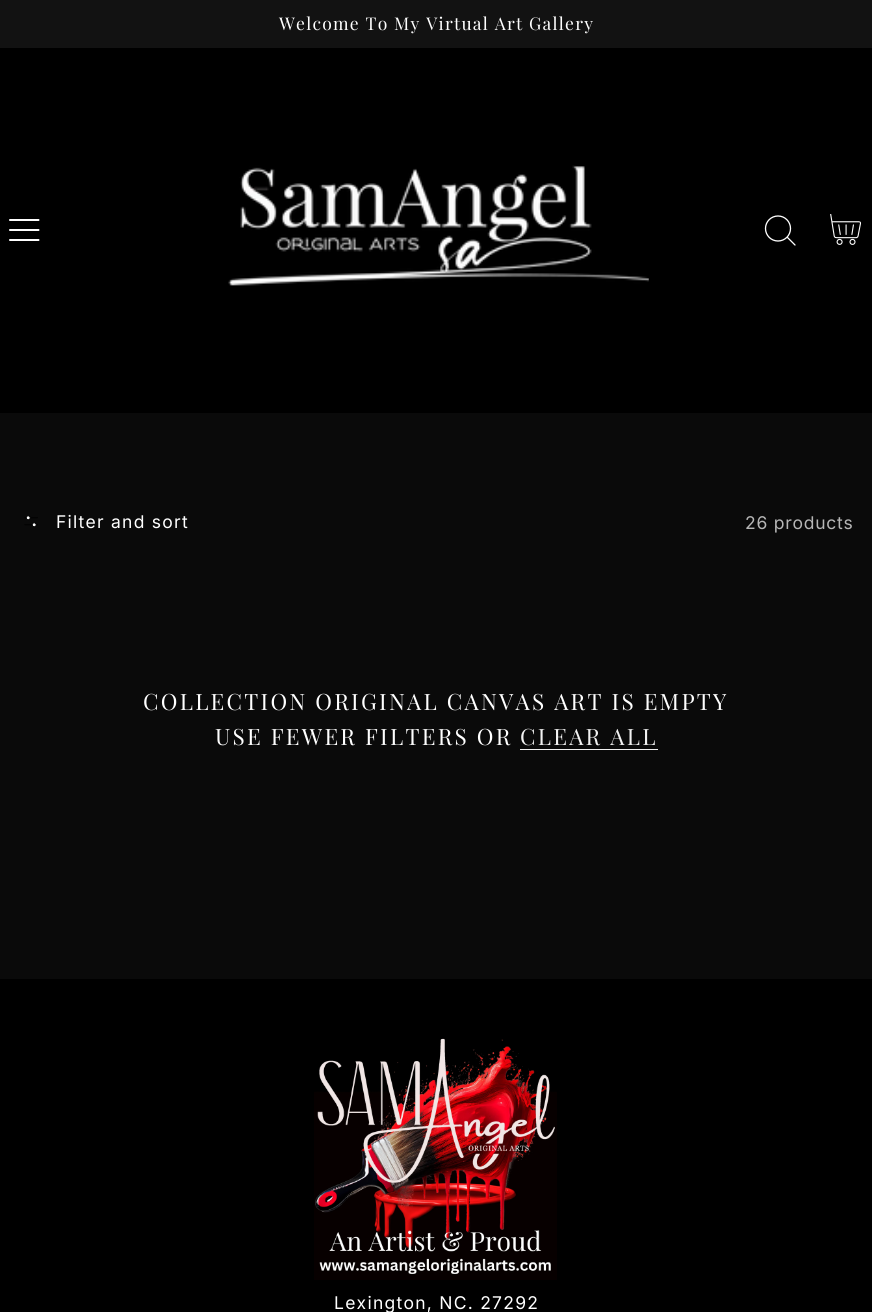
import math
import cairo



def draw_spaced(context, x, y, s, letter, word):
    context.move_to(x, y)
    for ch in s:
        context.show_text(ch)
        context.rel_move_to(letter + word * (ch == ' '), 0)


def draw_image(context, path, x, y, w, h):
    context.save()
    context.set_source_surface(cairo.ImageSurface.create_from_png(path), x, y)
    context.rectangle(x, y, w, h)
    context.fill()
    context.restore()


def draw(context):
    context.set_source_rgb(10 / 255, 10 / 255, 10 / 255)
    context.paint()
    context.set_source_rgb(18 / 255, 18 / 255, 18 / 255)
    context.rectangle(0, 0, 872, 48)
    context.fill()
    context.set_source_rgb(0, 0, 0)
    context.rectangle(0, 48, 872, 365)
    context.fill()
    context.new_path()
    context.move_to(10, 220)
    context.line_to(38.5, 220)
    context.move_to(10, 230)
    context.line_to(38.5, 230)
    context.move_to(10, 240)
    context.line_to(38.5, 240)
    context.set_source_rgb(1, 1, 1)
    context.set_line_cap(cairo.LineCap.ROUND)
    context.stroke()
    draw_image(context, "images/1.png", 228, 165, 421, 121)
    context.arc(778, 228.5, 12.5, 0, 2 * math.pi)
    context.set_line_width(1.3)
    context.set_line_cap(cairo.LineCap.BUTT)
    context.stroke()
    context.new_path()
    context.move_to(787.5, 237.5)
    context.line_to(795, 245)
    context.set_line_cap(cairo.LineCap.ROUND)
    context.stroke()
    draw_image(context, "images/2.png", 830, 214, 31, 31)
    draw_image(context, "images/3.png", 24, 515, 14, 12)
    context.set_source_rgb(242 / 255, 242 / 255, 242 / 255)
    context.rectangle(520, 749, 138, 1)
    context.fill()
    context.set_source_rgb(0, 0, 0)
    context.rectangle(0, 979, 872, 333)
    context.fill()
    draw_image(context, "images/4.png", 314, 1038, 243, 242)
    context.select_font_face("Playfair Display")
    context.set_font_size(17.5)
    context.set_source_rgb(1, 1, 1)
    draw_spaced(context, 279, 30, "Welcome To My Virtual Art Gallery", 1.25, 0)
    context.select_font_face("Inter")
    draw_spaced(context, 56, 528, "Filter and sort", 1.25, 0)
    context.set_source_rgb(182 / 255, 182 / 255, 182 / 255)
    draw_spaced(context, 745, 529, "26 products", 0.75, 0)
    context.select_font_face("Playfair Display")
    context.set_font_size(22.5)
    context.set_source_rgb(1, 1, 1)
    draw_spaced(context, 143, 710, "COLLECTION ORIGINAL CANVAS ART IS EMPTY", 2.25, 0)
    draw_spaced(context, 215, 745, "USE FEWER FILTERS OR", 2.25, 0)
    context.set_source_rgb(242 / 255, 242 / 255, 242 / 255)
    draw_spaced(context, 520, 745, "CLEAR ALL", 2.25, 0)
    context.select_font_face("Inter")
    context.set_font_size(17.5)
    context.set_source_rgb(1, 1, 1)
    draw_spaced(context, 334, 1309, "Lexington, NC. 27292", 1.25, 0)


surface = cairo.ImageSurface(cairo.Format.RGB24, 872, 1312)
context = cairo.Context(surface)
options = cairo.FontOptions()
options.set_hint_metrics(cairo.HintMetrics.OFF)
options.set_hint_style(cairo.HintStyle.NONE)
context.set_font_options(options)
context.set_miter_limit(4)
draw(context)
surface.write_to_png("out.png")
